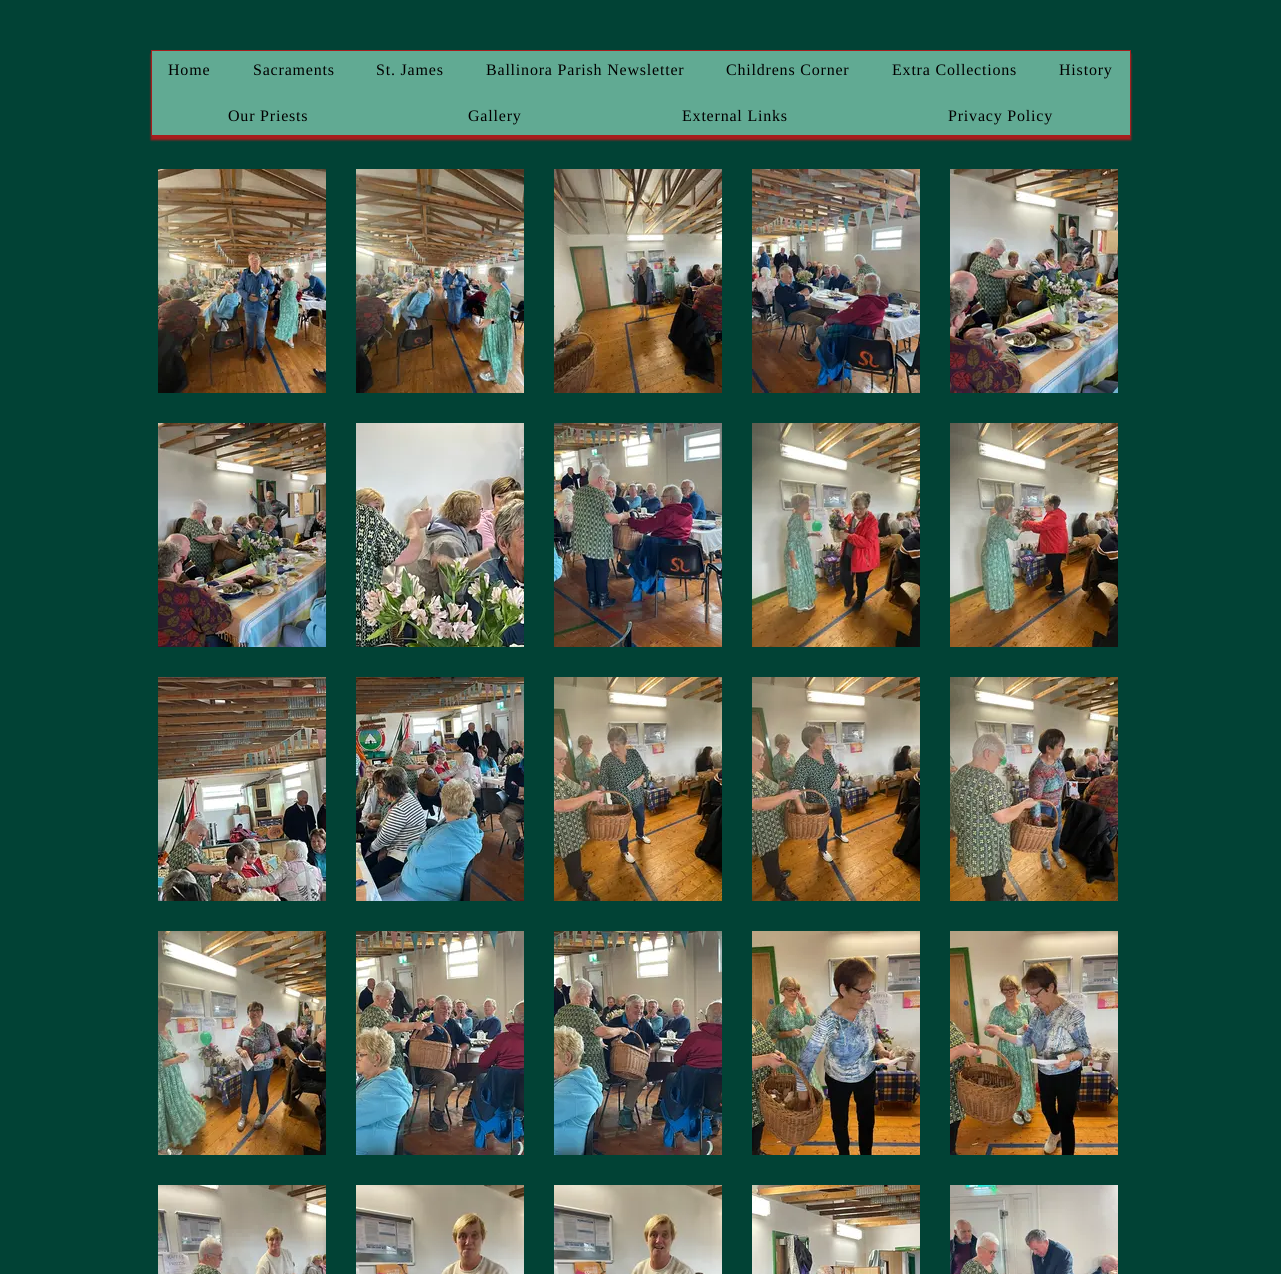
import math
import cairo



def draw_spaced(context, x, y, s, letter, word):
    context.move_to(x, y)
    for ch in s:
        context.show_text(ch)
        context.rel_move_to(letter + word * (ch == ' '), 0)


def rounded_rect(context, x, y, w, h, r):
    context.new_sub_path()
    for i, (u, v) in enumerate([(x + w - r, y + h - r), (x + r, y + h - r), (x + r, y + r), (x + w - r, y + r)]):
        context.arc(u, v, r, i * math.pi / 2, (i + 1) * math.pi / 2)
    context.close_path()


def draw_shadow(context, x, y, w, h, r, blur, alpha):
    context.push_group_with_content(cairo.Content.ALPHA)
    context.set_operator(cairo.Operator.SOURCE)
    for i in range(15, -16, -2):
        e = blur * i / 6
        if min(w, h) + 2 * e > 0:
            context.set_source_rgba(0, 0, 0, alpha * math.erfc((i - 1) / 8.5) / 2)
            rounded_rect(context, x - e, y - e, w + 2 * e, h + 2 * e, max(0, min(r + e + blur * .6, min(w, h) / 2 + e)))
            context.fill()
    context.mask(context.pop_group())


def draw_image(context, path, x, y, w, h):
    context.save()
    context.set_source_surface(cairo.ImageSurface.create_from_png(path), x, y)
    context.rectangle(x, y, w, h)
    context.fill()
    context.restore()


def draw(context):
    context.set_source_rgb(1 / 255, 66 / 255, 53 / 255)
    context.paint()
    context.set_source_rgb(168 / 255, 29 / 255, 29 / 255)
    draw_shadow(context, 151, 54, 980, 86, 0, 1, 1)
    context.set_source_rgb(97 / 255, 170 / 255, 147 / 255)
    context.rectangle(151.5, 50.5, 979, 85)
    context.fill_preserve()
    context.set_source_rgb(168 / 255, 29 / 255, 29 / 255)
    context.set_line_width(1)
    context.stroke()
    draw_image(context, "images/1.png", 158, 169, 168, 224)
    draw_image(context, "images/2.png", 356, 169, 168, 224)
    draw_image(context, "images/3.png", 554, 169, 168, 224)
    draw_image(context, "images/4.png", 752, 169, 168, 224)
    draw_image(context, "images/5.png", 950, 169, 168, 224)
    draw_image(context, "images/6.png", 158, 423, 168, 224)
    draw_image(context, "images/7.png", 356, 423, 168, 224)
    draw_image(context, "images/8.png", 554, 423, 168, 224)
    draw_image(context, "images/9.png", 752, 423, 168, 224)
    draw_image(context, "images/10.png", 950, 423, 168, 224)
    draw_image(context, "images/11.png", 158, 677, 168, 224)
    draw_image(context, "images/12.png", 356, 677, 168, 224)
    draw_image(context, "images/13.png", 554, 677, 168, 224)
    draw_image(context, "images/14.png", 752, 677, 168, 224)
    draw_image(context, "images/15.png", 950, 677, 168, 224)
    draw_image(context, "images/16.png", 158, 931, 168, 224)
    draw_image(context, "images/17.png", 356, 931, 168, 224)
    draw_image(context, "images/18.png", 554, 931, 168, 224)
    draw_image(context, "images/19.png", 752, 931, 168, 224)
    draw_image(context, "images/20.png", 950, 931, 168, 224)
    draw_image(context, "images/21.png", 158, 1185, 168, 89)
    draw_image(context, "images/22.png", 356, 1185, 168, 89)
    draw_image(context, "images/23.png", 554, 1185, 168, 89)
    draw_image(context, "images/24.png", 752, 1185, 168, 89)
    draw_image(context, "images/25.png", 950, 1185, 168, 89)
    context.select_font_face("Liberation Serif")
    context.set_font_size(16)
    context.set_source_rgb(0, 0, 0)
    draw_spaced(context, 168, 75, "Home", 0.8, 0)
    draw_spaced(context, 253, 75, "Sacraments", 0.8, 0)
    draw_spaced(context, 376, 75, "St. James", 0.8, 0)
    draw_spaced(context, 486, 75, "Ballinora Parish Newsletter", 0.8, 0)
    draw_spaced(context, 726, 75, "Childrens Corner", 0.8, 0)
    draw_spaced(context, 892, 75, "Extra Collections", 0.8, 0)
    draw_spaced(context, 1059, 75, "History", 0.8, 0)
    draw_spaced(context, 228, 121, "Our Priests", 0.8, 0)
    draw_spaced(context, 468, 121, "Gallery", 0.8, 0)
    draw_spaced(context, 682, 121, "External Links", 0.8, 0)
    draw_spaced(context, 948, 121, "Privacy Policy", 0.8, 0)


surface = cairo.ImageSurface(cairo.Format.RGB24, 1281, 1274)
context = cairo.Context(surface)
options = cairo.FontOptions()
options.set_hint_metrics(cairo.HintMetrics.OFF)
options.set_hint_style(cairo.HintStyle.NONE)
context.set_font_options(options)
context.set_miter_limit(4)
draw(context)
surface.write_to_png("out.png")
